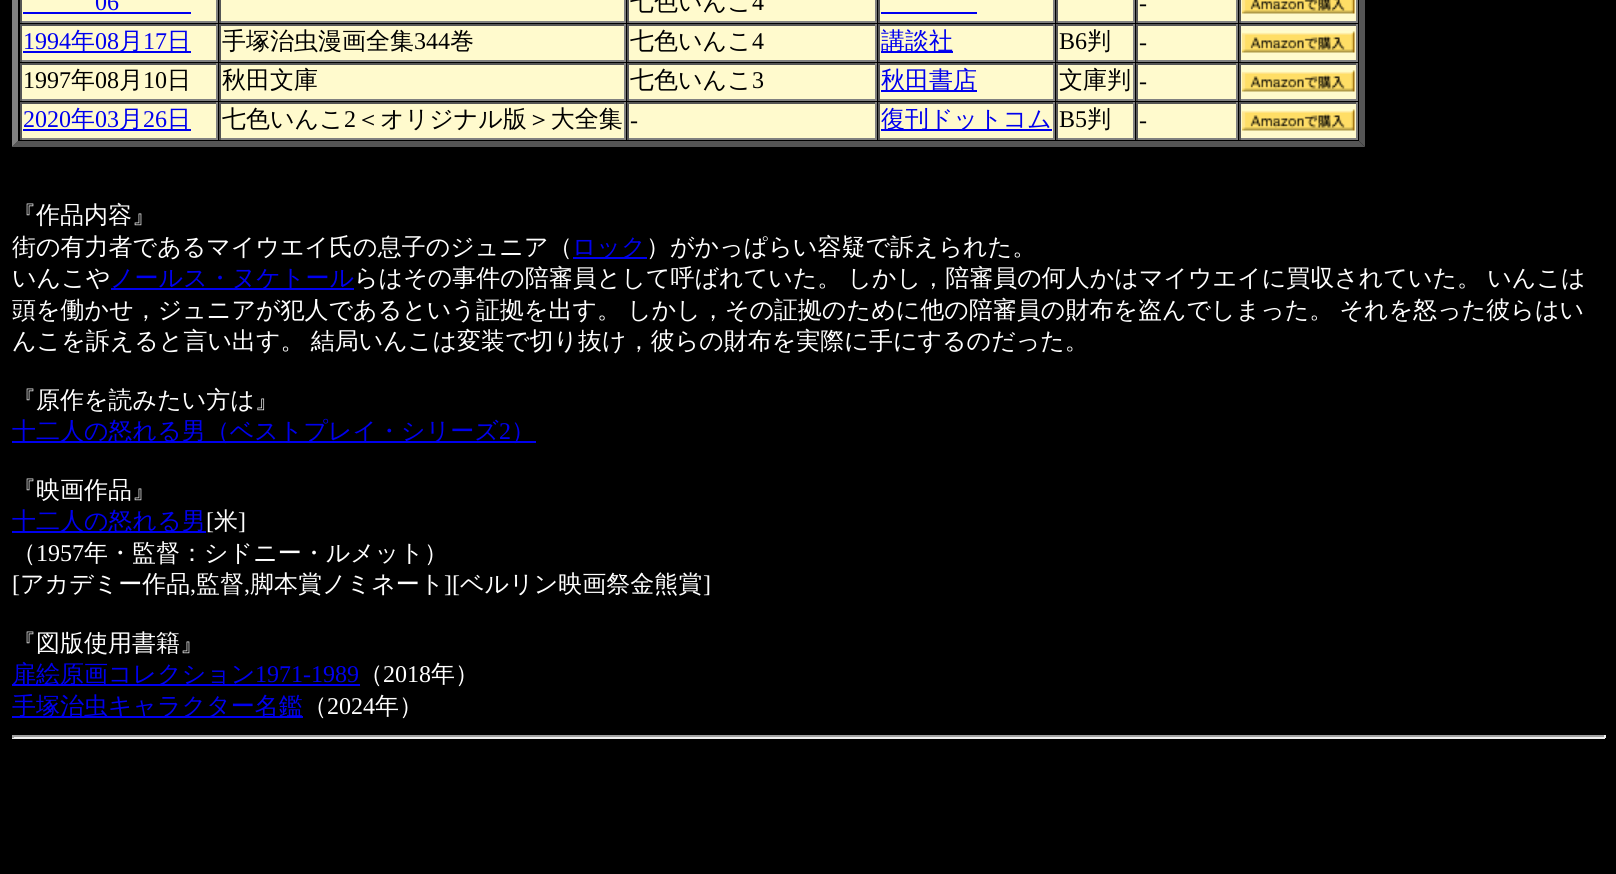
import math
import cairo



def draw_spaced(context, x, y, s, letter, word):
    context.move_to(x, y)
    for ch in s:
        context.show_text(ch)
        context.rel_move_to(letter + word * (ch == ' '), 0)


def draw_image(context, path, x, y, w, h):
    context.save()
    context.set_source_surface(cairo.ImageSurface.create_from_png(path), x, y)
    context.rectangle(x, y, w, h)
    context.fill()
    context.restore()


def draw(context):
    context.set_source_rgb(0, 0, 0)
    context.paint()
    context.set_source_rgb(85 / 255, 85 / 255, 85 / 255)
    context.new_path()
    context.move_to(1365, -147)
    context.line_to(1365, 147)
    context.line_to(1359, 141)
    context.line_to(1359, -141)
    context.close_path()
    context.fill()
    context.new_path()
    context.move_to(1365, 147)
    context.line_to(12, 147)
    context.line_to(18, 141)
    context.line_to(1359, 141)
    context.close_path()
    context.fill()
    context.set_source_rgb(128 / 255, 128 / 255, 128 / 255)
    context.new_path()
    context.move_to(12, 147)
    context.line_to(12, -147)
    context.line_to(18, -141)
    context.line_to(18, 141)
    context.close_path()
    context.fill()
    context.set_source_rgb(1, 250 / 255, 205 / 255)
    context.rectangle(22, 0, 194, 21)
    context.fill()
    context.set_source_rgb(128 / 255, 128 / 255, 128 / 255)
    context.rectangle(216, 0, 2, 23)
    context.fill()
    context.rectangle(20, 21, 198, 2)
    context.fill()
    context.set_source_rgb(85 / 255, 85 / 255, 85 / 255)
    context.rectangle(20, 0, 2, 23)
    context.fill()
    context.set_source_rgb(0, 0, 238 / 255)
    context.rectangle(23, 12, 168, 2)
    context.fill()
    context.set_source_rgb(1, 250 / 255, 205 / 255)
    context.rectangle(221, 0, 403, 21)
    context.fill()
    context.set_source_rgb(128 / 255, 128 / 255, 128 / 255)
    context.rectangle(624, 0, 2, 23)
    context.fill()
    context.rectangle(219, 21, 407, 2)
    context.fill()
    context.set_source_rgb(85 / 255, 85 / 255, 85 / 255)
    context.rectangle(219, 0, 2, 23)
    context.fill()
    context.set_source_rgb(1, 250 / 255, 205 / 255)
    context.rectangle(629, 0, 246, 21)
    context.fill()
    context.set_source_rgb(128 / 255, 128 / 255, 128 / 255)
    context.rectangle(875, 0, 2, 23)
    context.fill()
    context.rectangle(627, 21, 249, 2)
    context.fill()
    context.set_source_rgb(85 / 255, 85 / 255, 85 / 255)
    context.rectangle(627, 0, 2, 23)
    context.fill()
    context.set_source_rgb(1, 250 / 255, 205 / 255)
    context.rectangle(880, 0, 173, 21)
    context.fill()
    context.set_source_rgb(128 / 255, 128 / 255, 128 / 255)
    context.rectangle(1053, 0, 2, 23)
    context.fill()
    context.rectangle(878, 21, 177, 2)
    context.fill()
    context.set_source_rgb(85 / 255, 85 / 255, 85 / 255)
    context.rectangle(878, 0, 2, 23)
    context.fill()
    context.set_source_rgb(0, 0, 238 / 255)
    context.rectangle(881, 12, 96, 2)
    context.fill()
    context.set_source_rgb(1, 250 / 255, 205 / 255)
    context.rectangle(1058, 0, 75, 21)
    context.fill()
    context.set_source_rgb(128 / 255, 128 / 255, 128 / 255)
    context.rectangle(1133, 0, 2, 23)
    context.fill()
    context.rectangle(1056, 21, 78, 2)
    context.fill()
    context.set_source_rgb(85 / 255, 85 / 255, 85 / 255)
    context.rectangle(1056, 0, 2, 23)
    context.fill()
    context.set_source_rgb(1, 250 / 255, 205 / 255)
    context.rectangle(1138, 0, 98, 21)
    context.fill()
    context.set_source_rgb(128 / 255, 128 / 255, 128 / 255)
    context.rectangle(1236, 0, 2, 23)
    context.fill()
    context.rectangle(1136, 21, 102, 2)
    context.fill()
    context.set_source_rgb(85 / 255, 85 / 255, 85 / 255)
    context.rectangle(1136, 0, 2, 23)
    context.fill()
    context.set_source_rgb(1, 250 / 255, 205 / 255)
    context.rectangle(1241, 0, 115, 21)
    context.fill()
    context.set_source_rgb(128 / 255, 128 / 255, 128 / 255)
    context.rectangle(1356, 0, 2, 23)
    context.fill()
    context.rectangle(1239, 21, 119, 2)
    context.fill()
    context.set_source_rgb(85 / 255, 85 / 255, 85 / 255)
    context.rectangle(1239, 0, 2, 23)
    context.fill()
    draw_image(context, "images/1.png", 1242, 0, 113, 14)
    context.set_source_rgb(1, 250 / 255, 205 / 255)
    context.rectangle(22, 26, 194, 34)
    context.fill()
    context.set_source_rgb(85 / 255, 85 / 255, 85 / 255)
    context.rectangle(20, 24, 198, 2)
    context.fill()
    context.set_source_rgb(128 / 255, 128 / 255, 128 / 255)
    context.rectangle(216, 24, 2, 38)
    context.fill()
    context.rectangle(20, 60, 198, 2)
    context.fill()
    context.set_source_rgb(85 / 255, 85 / 255, 85 / 255)
    context.rectangle(20, 24, 2, 38)
    context.fill()
    context.set_source_rgb(0, 0, 238 / 255)
    context.rectangle(23, 51, 168, 2)
    context.fill()
    context.set_source_rgb(1, 250 / 255, 205 / 255)
    context.rectangle(221, 26, 403, 34)
    context.fill()
    context.set_source_rgb(85 / 255, 85 / 255, 85 / 255)
    context.rectangle(219, 24, 407, 2)
    context.fill()
    context.set_source_rgb(128 / 255, 128 / 255, 128 / 255)
    context.rectangle(624, 24, 2, 38)
    context.fill()
    context.rectangle(219, 60, 407, 2)
    context.fill()
    context.set_source_rgb(85 / 255, 85 / 255, 85 / 255)
    context.rectangle(219, 24, 2, 38)
    context.fill()
    context.set_source_rgb(1, 250 / 255, 205 / 255)
    context.rectangle(629, 26, 246, 34)
    context.fill()
    context.set_source_rgb(85 / 255, 85 / 255, 85 / 255)
    context.rectangle(627, 24, 249, 2)
    context.fill()
    context.set_source_rgb(128 / 255, 128 / 255, 128 / 255)
    context.rectangle(875, 24, 2, 38)
    context.fill()
    context.rectangle(627, 60, 249, 2)
    context.fill()
    context.set_source_rgb(85 / 255, 85 / 255, 85 / 255)
    context.rectangle(627, 24, 2, 38)
    context.fill()
    context.set_source_rgb(1, 250 / 255, 205 / 255)
    context.rectangle(880, 26, 173, 34)
    context.fill()
    context.set_source_rgb(85 / 255, 85 / 255, 85 / 255)
    context.rectangle(878, 24, 177, 2)
    context.fill()
    context.set_source_rgb(128 / 255, 128 / 255, 128 / 255)
    context.rectangle(1053, 24, 2, 38)
    context.fill()
    context.rectangle(878, 60, 177, 2)
    context.fill()
    context.set_source_rgb(85 / 255, 85 / 255, 85 / 255)
    context.rectangle(878, 24, 2, 38)
    context.fill()
    context.set_source_rgb(0, 0, 238 / 255)
    context.rectangle(881, 51, 72, 2)
    context.fill()
    context.set_source_rgb(1, 250 / 255, 205 / 255)
    context.rectangle(1058, 26, 75, 34)
    context.fill()
    context.set_source_rgb(85 / 255, 85 / 255, 85 / 255)
    context.rectangle(1056, 24, 78, 2)
    context.fill()
    context.set_source_rgb(128 / 255, 128 / 255, 128 / 255)
    context.rectangle(1133, 24, 2, 38)
    context.fill()
    context.rectangle(1056, 60, 78, 2)
    context.fill()
    context.set_source_rgb(85 / 255, 85 / 255, 85 / 255)
    context.rectangle(1056, 24, 2, 38)
    context.fill()
    context.set_source_rgb(1, 250 / 255, 205 / 255)
    context.rectangle(1138, 26, 98, 34)
    context.fill()
    context.set_source_rgb(85 / 255, 85 / 255, 85 / 255)
    context.rectangle(1136, 24, 102, 2)
    context.fill()
    context.set_source_rgb(128 / 255, 128 / 255, 128 / 255)
    context.rectangle(1236, 24, 2, 38)
    context.fill()
    context.rectangle(1136, 60, 102, 2)
    context.fill()
    context.set_source_rgb(85 / 255, 85 / 255, 85 / 255)
    context.rectangle(1136, 24, 2, 38)
    context.fill()
    context.set_source_rgb(1, 250 / 255, 205 / 255)
    context.rectangle(1241, 26, 115, 34)
    context.fill()
    context.set_source_rgb(85 / 255, 85 / 255, 85 / 255)
    context.rectangle(1239, 24, 119, 2)
    context.fill()
    context.set_source_rgb(128 / 255, 128 / 255, 128 / 255)
    context.rectangle(1356, 24, 2, 38)
    context.fill()
    context.rectangle(1239, 60, 119, 2)
    context.fill()
    context.set_source_rgb(85 / 255, 85 / 255, 85 / 255)
    context.rectangle(1239, 24, 2, 38)
    context.fill()
    draw_image(context, "images/2.png", 1242, 31, 113, 22)
    context.set_source_rgb(1, 250 / 255, 205 / 255)
    context.rectangle(22, 65, 194, 34)
    context.fill()
    context.set_source_rgb(85 / 255, 85 / 255, 85 / 255)
    context.rectangle(20, 63, 198, 2)
    context.fill()
    context.set_source_rgb(128 / 255, 128 / 255, 128 / 255)
    context.rectangle(216, 63, 2, 38)
    context.fill()
    context.rectangle(20, 99, 198, 2)
    context.fill()
    context.set_source_rgb(85 / 255, 85 / 255, 85 / 255)
    context.rectangle(20, 63, 2, 38)
    context.fill()
    context.set_source_rgb(1, 250 / 255, 205 / 255)
    context.rectangle(221, 65, 403, 34)
    context.fill()
    context.set_source_rgb(85 / 255, 85 / 255, 85 / 255)
    context.rectangle(219, 63, 407, 2)
    context.fill()
    context.set_source_rgb(128 / 255, 128 / 255, 128 / 255)
    context.rectangle(624, 63, 2, 38)
    context.fill()
    context.rectangle(219, 99, 407, 2)
    context.fill()
    context.set_source_rgb(85 / 255, 85 / 255, 85 / 255)
    context.rectangle(219, 63, 2, 38)
    context.fill()
    context.set_source_rgb(1, 250 / 255, 205 / 255)
    context.rectangle(629, 65, 246, 34)
    context.fill()
    context.set_source_rgb(85 / 255, 85 / 255, 85 / 255)
    context.rectangle(627, 63, 249, 2)
    context.fill()
    context.set_source_rgb(128 / 255, 128 / 255, 128 / 255)
    context.rectangle(875, 63, 2, 38)
    context.fill()
    context.rectangle(627, 99, 249, 2)
    context.fill()
    context.set_source_rgb(85 / 255, 85 / 255, 85 / 255)
    context.rectangle(627, 63, 2, 38)
    context.fill()
    context.set_source_rgb(1, 250 / 255, 205 / 255)
    context.rectangle(880, 65, 173, 34)
    context.fill()
    context.set_source_rgb(85 / 255, 85 / 255, 85 / 255)
    context.rectangle(878, 63, 177, 2)
    context.fill()
    context.set_source_rgb(128 / 255, 128 / 255, 128 / 255)
    context.rectangle(1053, 63, 2, 38)
    context.fill()
    context.rectangle(878, 99, 177, 2)
    context.fill()
    context.set_source_rgb(85 / 255, 85 / 255, 85 / 255)
    context.rectangle(878, 63, 2, 38)
    context.fill()
    context.set_source_rgb(0, 0, 238 / 255)
    context.rectangle(881, 90, 96, 2)
    context.fill()
    context.set_source_rgb(1, 250 / 255, 205 / 255)
    context.rectangle(1058, 65, 75, 34)
    context.fill()
    context.set_source_rgb(85 / 255, 85 / 255, 85 / 255)
    context.rectangle(1056, 63, 78, 2)
    context.fill()
    context.set_source_rgb(128 / 255, 128 / 255, 128 / 255)
    context.rectangle(1133, 63, 2, 38)
    context.fill()
    context.rectangle(1056, 99, 78, 2)
    context.fill()
    context.set_source_rgb(85 / 255, 85 / 255, 85 / 255)
    context.rectangle(1056, 63, 2, 38)
    context.fill()
    context.set_source_rgb(1, 250 / 255, 205 / 255)
    context.rectangle(1138, 65, 98, 34)
    context.fill()
    context.set_source_rgb(85 / 255, 85 / 255, 85 / 255)
    context.rectangle(1136, 63, 102, 2)
    context.fill()
    context.set_source_rgb(128 / 255, 128 / 255, 128 / 255)
    context.rectangle(1236, 63, 2, 38)
    context.fill()
    context.rectangle(1136, 99, 102, 2)
    context.fill()
    context.set_source_rgb(85 / 255, 85 / 255, 85 / 255)
    context.rectangle(1136, 63, 2, 38)
    context.fill()
    context.set_source_rgb(1, 250 / 255, 205 / 255)
    context.rectangle(1241, 65, 115, 34)
    context.fill()
    context.set_source_rgb(85 / 255, 85 / 255, 85 / 255)
    context.rectangle(1239, 63, 119, 2)
    context.fill()
    context.set_source_rgb(128 / 255, 128 / 255, 128 / 255)
    context.rectangle(1356, 63, 2, 38)
    context.fill()
    context.rectangle(1239, 99, 119, 2)
    context.fill()
    context.set_source_rgb(85 / 255, 85 / 255, 85 / 255)
    context.rectangle(1239, 63, 2, 38)
    context.fill()
    draw_image(context, "images/2.png", 1242, 70, 113, 22)
    context.set_source_rgb(1, 250 / 255, 205 / 255)
    context.rectangle(22, 104, 194, 34)
    context.fill()
    context.set_source_rgb(85 / 255, 85 / 255, 85 / 255)
    context.rectangle(20, 102, 198, 2)
    context.fill()
    context.set_source_rgb(128 / 255, 128 / 255, 128 / 255)
    context.rectangle(216, 102, 2, 38)
    context.fill()
    context.rectangle(20, 138, 198, 2)
    context.fill()
    context.set_source_rgb(85 / 255, 85 / 255, 85 / 255)
    context.rectangle(20, 102, 2, 38)
    context.fill()
    context.set_source_rgb(0, 0, 238 / 255)
    context.rectangle(23, 129, 168, 2)
    context.fill()
    context.set_source_rgb(1, 250 / 255, 205 / 255)
    context.rectangle(221, 104, 403, 34)
    context.fill()
    context.set_source_rgb(85 / 255, 85 / 255, 85 / 255)
    context.rectangle(219, 102, 407, 2)
    context.fill()
    context.set_source_rgb(128 / 255, 128 / 255, 128 / 255)
    context.rectangle(624, 102, 2, 38)
    context.fill()
    context.rectangle(219, 138, 407, 2)
    context.fill()
    context.set_source_rgb(85 / 255, 85 / 255, 85 / 255)
    context.rectangle(219, 102, 2, 38)
    context.fill()
    context.set_source_rgb(1, 250 / 255, 205 / 255)
    context.rectangle(629, 104, 246, 34)
    context.fill()
    context.set_source_rgb(85 / 255, 85 / 255, 85 / 255)
    context.rectangle(627, 102, 249, 2)
    context.fill()
    context.set_source_rgb(128 / 255, 128 / 255, 128 / 255)
    context.rectangle(875, 102, 2, 38)
    context.fill()
    context.rectangle(627, 138, 249, 2)
    context.fill()
    context.set_source_rgb(85 / 255, 85 / 255, 85 / 255)
    context.rectangle(627, 102, 2, 38)
    context.fill()
    context.set_source_rgb(1, 250 / 255, 205 / 255)
    context.rectangle(880, 104, 173, 34)
    context.fill()
    context.set_source_rgb(85 / 255, 85 / 255, 85 / 255)
    context.rectangle(878, 102, 177, 2)
    context.fill()
    context.set_source_rgb(128 / 255, 128 / 255, 128 / 255)
    context.rectangle(1053, 102, 2, 38)
    context.fill()
    context.rectangle(878, 138, 177, 2)
    context.fill()
    context.set_source_rgb(85 / 255, 85 / 255, 85 / 255)
    context.rectangle(878, 102, 2, 38)
    context.fill()
    context.set_source_rgb(0, 0, 238 / 255)
    context.rectangle(881, 129, 171, 2)
    context.fill()
    context.set_source_rgb(1, 250 / 255, 205 / 255)
    context.rectangle(1058, 104, 75, 34)
    context.fill()
    context.set_source_rgb(85 / 255, 85 / 255, 85 / 255)
    context.rectangle(1056, 102, 78, 2)
    context.fill()
    context.set_source_rgb(128 / 255, 128 / 255, 128 / 255)
    context.rectangle(1133, 102, 2, 38)
    context.fill()
    context.rectangle(1056, 138, 78, 2)
    context.fill()
    context.set_source_rgb(85 / 255, 85 / 255, 85 / 255)
    context.rectangle(1056, 102, 2, 38)
    context.fill()
    context.set_source_rgb(1, 250 / 255, 205 / 255)
    context.rectangle(1138, 104, 98, 34)
    context.fill()
    context.set_source_rgb(85 / 255, 85 / 255, 85 / 255)
    context.rectangle(1136, 102, 102, 2)
    context.fill()
    context.set_source_rgb(128 / 255, 128 / 255, 128 / 255)
    context.rectangle(1236, 102, 2, 38)
    context.fill()
    context.rectangle(1136, 138, 102, 2)
    context.fill()
    context.set_source_rgb(85 / 255, 85 / 255, 85 / 255)
    context.rectangle(1136, 102, 2, 38)
    context.fill()
    context.set_source_rgb(1, 250 / 255, 205 / 255)
    context.rectangle(1241, 104, 115, 34)
    context.fill()
    context.set_source_rgb(85 / 255, 85 / 255, 85 / 255)
    context.rectangle(1239, 102, 119, 2)
    context.fill()
    context.set_source_rgb(128 / 255, 128 / 255, 128 / 255)
    context.rectangle(1356, 102, 2, 38)
    context.fill()
    context.rectangle(1239, 138, 119, 2)
    context.fill()
    context.set_source_rgb(85 / 255, 85 / 255, 85 / 255)
    context.rectangle(1239, 102, 2, 38)
    context.fill()
    draw_image(context, "images/2.png", 1242, 109, 113, 22)
    context.set_source_rgb(0, 0, 238 / 255)
    context.rectangle(573, 257, 74, 2)
    context.fill()
    context.rectangle(111, 288, 243, 2)
    context.fill()
    context.rectangle(12, 441, 524, 2)
    context.fill()
    context.rectangle(12, 531, 194, 2)
    context.fill()
    context.rectangle(12, 684, 348, 2)
    context.fill()
    context.rectangle(12, 716, 291, 2)
    context.fill()
    context.set_source_rgb(159 / 255, 159 / 255, 159 / 255)
    context.rectangle(12, 735, 1593, 2)
    context.fill()
    context.set_source_rgb(238 / 255, 238 / 255, 238 / 255)
    context.rectangle(1604, 735, 2, 3)
    context.fill()
    context.rectangle(12, 737, 1593, 2)
    context.fill()
    context.set_source_rgb(159 / 255, 159 / 255, 159 / 255)
    context.rectangle(12, 735, 2, 3)
    context.fill()
    context.select_font_face("Liberation Serif")
    context.set_font_size(24)
    context.set_source_rgb(0, 0, 238 / 255)
    context.move_to(95, 10)
    context.show_text("06")
    context.select_font_face("WenQuanYi Zen Hei Medium")
    context.set_source_rgb(0, 0, 0)
    context.move_to(630, 10)
    context.show_text("七色いんこ")
    context.select_font_face("Liberation Serif")
    context.move_to(752, 10)
    context.show_text("4")
    context.move_to(1139, 11)
    context.show_text("-")
    context.set_source_rgb(0, 0, 238 / 255)
    context.move_to(23, 49)
    context.show_text("1994")
    context.select_font_face("WenQuanYi Zen Hei Medium")
    context.move_to(71, 49)
    context.show_text("年")
    context.select_font_face("Liberation Serif")
    context.move_to(95, 49)
    context.show_text("08")
    context.select_font_face("WenQuanYi Zen Hei Medium")
    context.move_to(119, 49)
    context.show_text("月")
    context.select_font_face("Liberation Serif")
    context.move_to(143, 49)
    context.show_text("17")
    context.select_font_face("WenQuanYi Zen Hei Medium")
    context.move_to(167, 49)
    context.show_text("日")
    context.set_source_rgb(0, 0, 0)
    context.move_to(222, 49)
    context.show_text("手塚治虫漫画全集")
    context.select_font_face("Liberation Serif")
    context.move_to(414, 49)
    context.show_text("344")
    context.select_font_face("WenQuanYi Zen Hei Medium")
    context.move_to(450, 49)
    context.show_text("巻")
    context.move_to(630, 49)
    context.show_text("七色いんこ")
    context.select_font_face("Liberation Serif")
    context.move_to(752, 49)
    context.show_text("4")
    context.select_font_face("WenQuanYi Zen Hei Medium")
    context.set_source_rgb(0, 0, 238 / 255)
    context.move_to(881, 49)
    context.show_text("講談社")
    context.select_font_face("Liberation Serif")
    context.set_source_rgb(0, 0, 0)
    context.move_to(1059, 49)
    context.show_text("B6")
    context.select_font_face("WenQuanYi Zen Hei Medium")
    context.move_to(1087, 49)
    context.show_text("判")
    context.select_font_face("Liberation Serif")
    context.move_to(1139, 50)
    context.show_text("-")
    context.move_to(23, 88)
    context.show_text("1997")
    context.select_font_face("WenQuanYi Zen Hei Medium")
    context.move_to(71, 88)
    context.show_text("年")
    context.select_font_face("Liberation Serif")
    context.move_to(95, 88)
    context.show_text("08")
    context.select_font_face("WenQuanYi Zen Hei Medium")
    context.move_to(119, 88)
    context.show_text("月")
    context.select_font_face("Liberation Serif")
    context.move_to(143, 88)
    context.show_text("10")
    context.select_font_face("WenQuanYi Zen Hei Medium")
    context.move_to(167, 88)
    context.show_text("日")
    context.move_to(222, 88)
    context.show_text("秋田文庫")
    context.move_to(630, 88)
    context.show_text("七色いんこ")
    context.select_font_face("Liberation Serif")
    context.move_to(752, 88)
    context.show_text("3")
    context.select_font_face("WenQuanYi Zen Hei Medium")
    context.set_source_rgb(0, 0, 238 / 255)
    context.move_to(881, 88)
    context.show_text("秋田書店")
    context.set_source_rgb(0, 0, 0)
    context.move_to(1059, 88)
    context.show_text("文庫判")
    context.select_font_face("Liberation Serif")
    context.move_to(1139, 89)
    context.show_text("-")
    context.set_source_rgb(0, 0, 238 / 255)
    context.move_to(23, 127)
    context.show_text("2020")
    context.select_font_face("WenQuanYi Zen Hei Medium")
    context.move_to(71, 127)
    context.show_text("年")
    context.select_font_face("Liberation Serif")
    context.move_to(95, 127)
    context.show_text("03")
    context.select_font_face("WenQuanYi Zen Hei Medium")
    context.move_to(119, 127)
    context.show_text("月")
    context.select_font_face("Liberation Serif")
    context.move_to(143, 127)
    context.show_text("26")
    context.select_font_face("WenQuanYi Zen Hei Medium")
    context.move_to(167, 127)
    context.show_text("日")
    context.set_source_rgb(0, 0, 0)
    context.move_to(222, 127)
    context.show_text("七色いんこ")
    context.select_font_face("Liberation Serif")
    context.move_to(344, 127)
    context.show_text("2")
    context.select_font_face("WenQuanYi Zen Hei Medium")
    context.move_to(356, 127)
    context.show_text("＜オリジナル版＞大全集")
    context.select_font_face("Liberation Serif")
    context.move_to(630, 128)
    context.show_text("-")
    context.select_font_face("WenQuanYi Zen Hei Medium")
    context.set_source_rgb(0, 0, 238 / 255)
    context.move_to(881, 127)
    context.show_text("復刊ドットコム")
    context.select_font_face("Liberation Serif")
    context.set_source_rgb(0, 0, 0)
    context.move_to(1059, 127)
    context.show_text("B5")
    context.select_font_face("WenQuanYi Zen Hei Medium")
    context.move_to(1087, 127)
    context.show_text("判")
    context.select_font_face("Liberation Serif")
    context.move_to(1139, 128)
    context.show_text("-")
    context.select_font_face("WenQuanYi Zen Hei Medium")
    context.set_source_rgb(1, 1, 1)
    context.move_to(12, 223)
    context.show_text("『作品内容』")
    context.move_to(12, 255)
    context.show_text("街の有力者であるマイウエイ氏の息子のジュニア（")
    context.set_source_rgb(0, 0, 238 / 255)
    context.move_to(572, 255)
    context.show_text("ロック")
    context.set_source_rgb(1, 1, 1)
    context.move_to(646, 255)
    context.show_text("）がかっぱらい容疑で訴えられた。")
    context.move_to(12, 286)
    context.show_text("いんこや")
    context.set_source_rgb(0, 0, 238 / 255)
    context.move_to(110, 286)
    context.show_text("ノールス・ヌケトール")
    context.set_source_rgb(1, 1, 1)
    draw_spaced(context, 354, 286, "らはその事件の陪審員として呼ばれていた。 しかし，陪審員の何人かはマイウエイに買収されていた。 いんこは", 0, -1)
    draw_spaced(context, 12, 318, "頭を働かせ，ジュニアが犯人であるという証拠を出す。 しかし，その証拠のために他の陪審員の財布を盗んでしまった。 それを怒った彼らはい", 0, -1)
    draw_spaced(context, 12, 349, "んこを訴えると言い出す。 結局いんこは変装で切り抜け，彼らの財布を実際に手にするのだった。", 0, -1)
    context.move_to(12, 408)
    context.show_text("『原作を読みたい方は』")
    context.set_source_rgb(0, 0, 238 / 255)
    context.move_to(12, 439)
    context.show_text("十二人の怒れる男（ベストプレイ・シリーズ")
    context.select_font_face("Liberation Serif")
    context.move_to(499, 439)
    context.show_text("2")
    context.select_font_face("WenQuanYi Zen Hei Medium")
    context.move_to(511, 439)
    context.show_text("）")
    context.set_source_rgb(1, 1, 1)
    context.move_to(12, 498)
    context.show_text("『映画作品』")
    context.set_source_rgb(0, 0, 238 / 255)
    context.move_to(12, 529)
    context.show_text("十二人の怒れる男")
    context.select_font_face("Liberation Serif")
    context.set_source_rgb(1, 1, 1)
    context.move_to(206, 529)
    context.show_text("[")
    context.select_font_face("WenQuanYi Zen Hei Medium")
    context.move_to(214, 529)
    context.show_text("米")
    context.select_font_face("Liberation Serif")
    context.move_to(238, 529)
    context.show_text("]")
    context.select_font_face("WenQuanYi Zen Hei Medium")
    context.move_to(12, 561)
    context.show_text("（")
    context.select_font_face("Liberation Serif")
    context.move_to(36, 561)
    context.show_text("1957")
    context.select_font_face("WenQuanYi Zen Hei Medium")
    context.move_to(84, 561)
    context.show_text("年・監督：シドニー・ルメット）")
    context.select_font_face("Liberation Serif")
    context.move_to(12, 592)
    context.show_text("[")
    context.select_font_face("WenQuanYi Zen Hei Medium")
    context.move_to(20, 592)
    context.show_text("アカデミー作品")
    context.select_font_face("Liberation Serif")
    context.move_to(190, 592)
    context.show_text(",")
    context.select_font_face("WenQuanYi Zen Hei Medium")
    context.move_to(196, 592)
    context.show_text("監督")
    context.select_font_face("Liberation Serif")
    context.move_to(244, 592)
    context.show_text(",")
    context.select_font_face("WenQuanYi Zen Hei Medium")
    context.move_to(250, 592)
    context.show_text("脚本賞ノミネート")
    context.select_font_face("Liberation Serif")
    context.move_to(444, 592)
    context.show_text("][")
    context.select_font_face("WenQuanYi Zen Hei Medium")
    context.move_to(460, 592)
    context.show_text("ベルリン映画祭金熊賞")
    context.select_font_face("Liberation Serif")
    context.move_to(703, 592)
    context.show_text("]")
    context.select_font_face("WenQuanYi Zen Hei Medium")
    context.move_to(12, 651)
    context.show_text("『図版使用書籍』")
    context.set_source_rgb(0, 0, 238 / 255)
    context.move_to(12, 682)
    context.show_text("扉絵原画コレクション")
    context.select_font_face("Liberation Serif")
    context.move_to(255, 682)
    context.show_text("1971-1989")
    context.select_font_face("WenQuanYi Zen Hei Medium")
    context.set_source_rgb(1, 1, 1)
    context.move_to(359, 682)
    context.show_text("（")
    context.select_font_face("Liberation Serif")
    context.move_to(383, 682)
    context.show_text("2018")
    context.select_font_face("WenQuanYi Zen Hei Medium")
    context.move_to(431, 682)
    context.show_text("年）")
    context.set_source_rgb(0, 0, 238 / 255)
    context.move_to(12, 714)
    context.show_text("手塚治虫キャラクター名鑑")
    context.set_source_rgb(1, 1, 1)
    context.move_to(303, 714)
    context.show_text("（")
    context.select_font_face("Liberation Serif")
    context.move_to(327, 714)
    context.show_text("2024")
    context.select_font_face("WenQuanYi Zen Hei Medium")
    context.move_to(375, 714)
    context.show_text("年）")


surface = cairo.ImageSurface(cairo.Format.RGB24, 1616, 874)
context = cairo.Context(surface)
options = cairo.FontOptions()
options.set_hint_metrics(cairo.HintMetrics.OFF)
options.set_hint_style(cairo.HintStyle.NONE)
context.set_font_options(options)
context.set_miter_limit(4)
draw(context)
surface.write_to_png("out.png")
